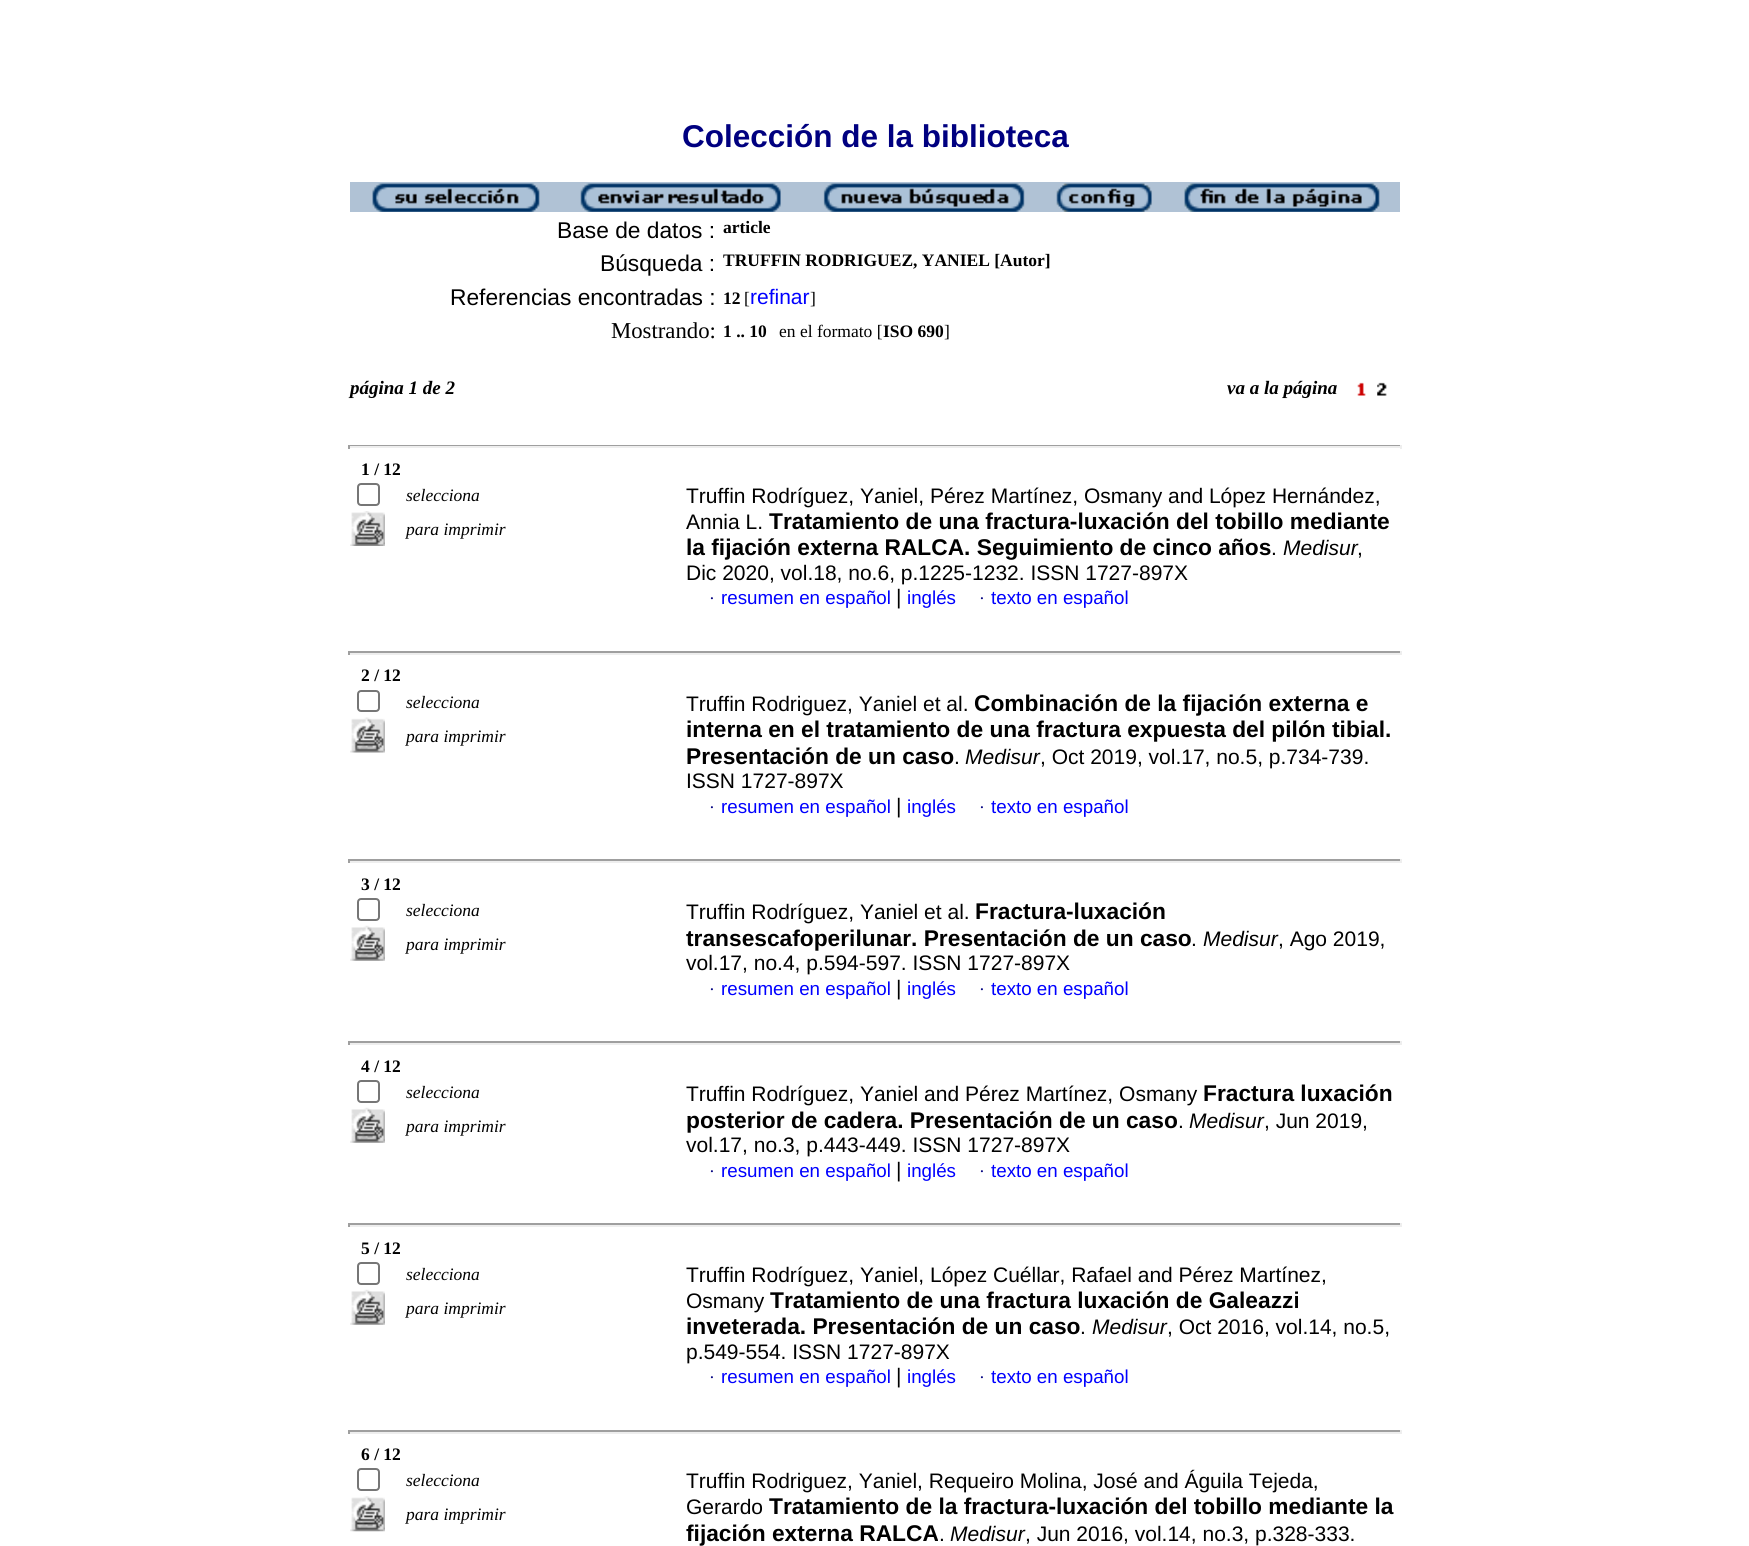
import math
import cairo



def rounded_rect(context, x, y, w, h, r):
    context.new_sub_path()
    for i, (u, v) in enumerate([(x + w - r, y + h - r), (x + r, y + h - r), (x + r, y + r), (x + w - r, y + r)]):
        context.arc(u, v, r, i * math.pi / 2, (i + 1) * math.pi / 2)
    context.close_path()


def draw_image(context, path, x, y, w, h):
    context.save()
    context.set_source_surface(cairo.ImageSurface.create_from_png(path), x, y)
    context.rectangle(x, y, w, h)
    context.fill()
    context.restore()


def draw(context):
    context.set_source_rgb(1, 1, 1)
    context.paint()
    context.set_source_rgb(176 / 255, 194 / 255, 213 / 255)
    context.rectangle(350, 182, 1050, 30)
    context.fill()
    draw_image(context, "images/1.png", 372, 183, 168, 29)
    draw_image(context, "images/2.png", 580, 183, 201, 29)
    draw_image(context, "images/3.png", 823, 183, 202, 29)
    draw_image(context, "images/4.png", 1056, 183, 96, 29)
    draw_image(context, "images/5.png", 1184, 183, 196, 29)
    draw_image(context, "images/6.png", 1357, 382, 9, 14)
    draw_image(context, "images/7.png", 1377, 382, 10, 14)
    context.set_source_rgb(159 / 255, 159 / 255, 159 / 255)
    context.rectangle(348, 445, 1054, 1)
    context.fill()
    context.set_source_rgb(238 / 255, 238 / 255, 238 / 255)
    context.rectangle(1400, 445, 2, 4)
    context.fill()
    context.rectangle(348, 446, 1054, 2)
    context.fill()
    context.set_source_rgb(159 / 255, 159 / 255, 159 / 255)
    context.rectangle(348, 445, 2, 4)
    context.fill()
    rounded_rect(context, 358, 484, 21, 21, 3)
    context.set_source_rgb(118 / 255, 118 / 255, 118 / 255)
    context.stroke()
    draw_image(context, "images/8.png", 350, 511, 35, 35)
    context.set_source_rgb(159 / 255, 159 / 255, 159 / 255)
    context.rectangle(348, 651, 1054, 2)
    context.fill()
    context.set_source_rgb(238 / 255, 238 / 255, 238 / 255)
    context.rectangle(1400, 651, 2, 4)
    context.fill()
    context.rectangle(348, 653, 1054, 2)
    context.fill()
    context.set_source_rgb(159 / 255, 159 / 255, 159 / 255)
    context.rectangle(348, 651, 2, 4)
    context.fill()
    rounded_rect(context, 358, 691, 21, 20, 3)
    context.set_source_rgb(118 / 255, 118 / 255, 118 / 255)
    context.stroke()
    draw_image(context, "images/9.png", 350, 717, 35, 36)
    context.set_source_rgb(159 / 255, 159 / 255, 159 / 255)
    context.rectangle(348, 859, 1054, 2)
    context.fill()
    context.set_source_rgb(238 / 255, 238 / 255, 238 / 255)
    context.rectangle(1400, 859, 2, 4)
    context.fill()
    context.rectangle(348, 861, 1054, 2)
    context.fill()
    context.set_source_rgb(159 / 255, 159 / 255, 159 / 255)
    context.rectangle(348, 859, 2, 4)
    context.fill()
    rounded_rect(context, 358, 899, 21, 21, 3)
    context.set_source_rgb(118 / 255, 118 / 255, 118 / 255)
    context.stroke()
    draw_image(context, "images/10.png", 350, 925, 35, 36)
    context.set_source_rgb(159 / 255, 159 / 255, 159 / 255)
    context.rectangle(348, 1041, 1054, 2)
    context.fill()
    context.set_source_rgb(238 / 255, 238 / 255, 238 / 255)
    context.rectangle(1400, 1041, 2, 4)
    context.fill()
    context.rectangle(348, 1043, 1054, 2)
    context.fill()
    context.set_source_rgb(159 / 255, 159 / 255, 159 / 255)
    context.rectangle(348, 1041, 2, 4)
    context.fill()
    rounded_rect(context, 358, 1081, 21, 21, 3)
    context.set_source_rgb(118 / 255, 118 / 255, 118 / 255)
    context.stroke()
    draw_image(context, "images/10.png", 350, 1107, 35, 36)
    context.set_source_rgb(159 / 255, 159 / 255, 159 / 255)
    context.rectangle(348, 1223, 1054, 2)
    context.fill()
    context.set_source_rgb(238 / 255, 238 / 255, 238 / 255)
    context.rectangle(1400, 1223, 2, 4)
    context.fill()
    context.rectangle(348, 1225, 1054, 2)
    context.fill()
    context.set_source_rgb(159 / 255, 159 / 255, 159 / 255)
    context.rectangle(348, 1223, 2, 4)
    context.fill()
    rounded_rect(context, 358, 1263, 21, 21, 3)
    context.set_source_rgb(118 / 255, 118 / 255, 118 / 255)
    context.stroke()
    draw_image(context, "images/10.png", 350, 1289, 35, 36)
    context.set_source_rgb(159 / 255, 159 / 255, 159 / 255)
    context.rectangle(348, 1430, 1054, 2)
    context.fill()
    context.set_source_rgb(238 / 255, 238 / 255, 238 / 255)
    context.rectangle(1400, 1430, 2, 4)
    context.fill()
    context.rectangle(348, 1432, 1054, 2)
    context.fill()
    context.set_source_rgb(159 / 255, 159 / 255, 159 / 255)
    context.rectangle(348, 1430, 2, 4)
    context.fill()
    rounded_rect(context, 358, 1469, 21, 21, 3)
    context.set_source_rgb(118 / 255, 118 / 255, 118 / 255)
    context.stroke()
    draw_image(context, "images/11.png", 350, 1496, 35, 36)
    context.select_font_face("Liberation Sans", cairo.FontSlant.NORMAL, cairo.FontWeight.BOLD)
    context.set_font_size(31.5)
    context.set_source_rgb(0, 0, 128 / 255)
    context.move_to(682, 147)
    context.show_text("Colección de la biblioteca")
    context.select_font_face("Liberation Sans")
    context.set_font_size(22.75)
    context.set_source_rgb(0, 0, 0)
    context.move_to(557, 238)
    context.show_text("Base de datos :")
    context.select_font_face("Liberation Serif", cairo.FontSlant.NORMAL, cairo.FontWeight.BOLD)
    context.set_font_size(17.5)
    context.move_to(723, 233)
    context.show_text("article")
    context.select_font_face("Liberation Sans")
    context.set_font_size(22.75)
    context.move_to(600, 271)
    context.show_text("Búsqueda :")
    context.select_font_face("Liberation Serif", cairo.FontSlant.NORMAL, cairo.FontWeight.BOLD)
    context.set_font_size(17.5)
    context.move_to(723, 266)
    context.show_text("TRUFFIN RODRIGUEZ, YANIEL [Autor]")
    context.select_font_face("Liberation Sans")
    context.set_font_size(22.75)
    context.move_to(450, 305)
    context.show_text("Referencias encontradas :")
    context.select_font_face("Liberation Serif", cairo.FontSlant.NORMAL, cairo.FontWeight.BOLD)
    context.set_font_size(17.5)
    context.move_to(723, 304)
    context.show_text("12")
    context.select_font_face("Liberation Serif")
    context.move_to(744, 304)
    context.show_text("[")
    context.select_font_face("Liberation Sans")
    context.set_font_size(21)
    context.set_source_rgb(0, 0, 1)
    context.move_to(750, 304)
    context.show_text("refinar")
    context.select_font_face("Liberation Serif")
    context.set_font_size(17.5)
    context.set_source_rgb(0, 0, 0)
    context.move_to(810, 304)
    context.show_text("]")
    context.set_font_size(22.75)
    context.move_to(611, 338)
    context.show_text("Mostrando:")
    context.select_font_face("Liberation Serif", cairo.FontSlant.NORMAL, cairo.FontWeight.BOLD)
    context.set_font_size(17.5)
    context.move_to(723, 337)
    context.show_text("1 .. 10")
    context.select_font_face("Liberation Serif")
    context.move_to(779, 337)
    context.show_text("en el formato [")
    context.select_font_face("Liberation Serif", cairo.FontSlant.NORMAL, cairo.FontWeight.BOLD)
    context.move_to(883, 337)
    context.show_text("ISO 690")
    context.select_font_face("Liberation Serif")
    context.move_to(944, 337)
    context.show_text("]")
    context.select_font_face("Liberation Serif", cairo.FontSlant.ITALIC, cairo.FontWeight.BOLD)
    context.set_font_size(19)
    context.move_to(350, 394)
    context.show_text("página 1 de 2")
    context.move_to(1227, 394)
    context.show_text("va a la página")
    context.select_font_face("Liberation Serif", cairo.FontSlant.NORMAL, cairo.FontWeight.BOLD)
    context.set_font_size(17.5)
    context.move_to(361, 475)
    context.show_text("1 / 12")
    context.select_font_face("Liberation Serif", cairo.FontSlant.ITALIC)
    context.move_to(406, 501)
    context.show_text("selecciona")
    context.move_to(406, 535)
    context.show_text("para imprimir")
    context.select_font_face("Liberation Sans")
    context.set_font_size(21)
    context.move_to(686, 503)
    context.show_text("Truffin Rodríguez, Yaniel, Pérez Martínez, Osmany and López Hernández,")
    context.move_to(686, 529)
    context.show_text("Annia L.")
    context.select_font_face("Liberation Sans", cairo.FontSlant.NORMAL, cairo.FontWeight.BOLD)
    context.set_font_size(22.75)
    context.move_to(769, 529)
    context.show_text("Tratamiento de una fractura-luxación del tobillo mediante")
    context.move_to(686, 555)
    context.show_text("la fijación externa RALCA. Seguimiento de cinco años")
    context.select_font_face("Liberation Sans")
    context.set_font_size(21)
    context.move_to(1271, 555)
    context.show_text(".")
    context.select_font_face("Liberation Sans", cairo.FontSlant.ITALIC)
    context.move_to(1283, 555)
    context.show_text("Medisur")
    context.select_font_face("Liberation Sans")
    context.move_to(1357, 555)
    context.show_text(",")
    context.move_to(686, 580)
    context.show_text("Dic 2020, vol.18, no.6, p.1225-1232. ISSN 1727-897X")
    context.select_font_face("Liberation Serif")
    context.set_font_size(17.5)
    context.set_source_rgb(0, 0, 128 / 255)
    context.move_to(709, 604)
    context.show_text("·")
    context.select_font_face("Liberation Sans")
    context.set_font_size(18.75)
    context.set_source_rgb(0, 0, 1)
    context.move_to(721, 604)
    context.show_text("resumen en español")
    context.set_font_size(21)
    context.set_source_rgb(0, 0, 0)
    context.move_to(896, 604)
    context.show_text("|")
    context.set_font_size(18.75)
    context.set_source_rgb(0, 0, 1)
    context.move_to(907, 604)
    context.show_text("inglés")
    context.select_font_face("Liberation Serif")
    context.set_font_size(17.5)
    context.set_source_rgb(0, 0, 128 / 255)
    context.move_to(979, 604)
    context.show_text("·")
    context.select_font_face("Liberation Sans")
    context.set_font_size(18.75)
    context.set_source_rgb(0, 0, 1)
    context.move_to(991, 604)
    context.show_text("texto en español")
    context.select_font_face("Liberation Serif", cairo.FontSlant.NORMAL, cairo.FontWeight.BOLD)
    context.set_font_size(17.5)
    context.set_source_rgb(0, 0, 0)
    context.move_to(361, 681)
    context.show_text("2 / 12")
    context.select_font_face("Liberation Serif", cairo.FontSlant.ITALIC)
    context.move_to(406, 708)
    context.show_text("selecciona")
    context.move_to(406, 742)
    context.show_text("para imprimir")
    context.select_font_face("Liberation Sans")
    context.set_font_size(21)
    context.move_to(686, 711)
    context.show_text("Truffin Rodriguez, Yaniel et al.")
    context.select_font_face("Liberation Sans", cairo.FontSlant.NORMAL, cairo.FontWeight.BOLD)
    context.set_font_size(22.75)
    context.move_to(974, 711)
    context.show_text("Combinación de la fijación externa e")
    context.move_to(686, 737)
    context.show_text("interna en el tratamiento de una fractura expuesta del pilón tibial.")
    context.move_to(686, 764)
    context.show_text("Presentación de un caso")
    context.select_font_face("Liberation Sans")
    context.set_font_size(21)
    context.move_to(954, 764)
    context.show_text(".")
    context.select_font_face("Liberation Sans", cairo.FontSlant.ITALIC)
    context.move_to(965, 764)
    context.show_text("Medisur")
    context.select_font_face("Liberation Sans")
    context.move_to(1040, 764)
    context.show_text(", Oct 2019, vol.17, no.5, p.734-739.")
    context.move_to(686, 788)
    context.show_text("ISSN 1727-897X")
    context.select_font_face("Liberation Serif")
    context.set_font_size(17.5)
    context.set_source_rgb(0, 0, 128 / 255)
    context.move_to(709, 813)
    context.show_text("·")
    context.select_font_face("Liberation Sans")
    context.set_font_size(18.75)
    context.set_source_rgb(0, 0, 1)
    context.move_to(721, 813)
    context.show_text("resumen en español")
    context.set_font_size(21)
    context.set_source_rgb(0, 0, 0)
    context.move_to(896, 813)
    context.show_text("|")
    context.set_font_size(18.75)
    context.set_source_rgb(0, 0, 1)
    context.move_to(907, 813)
    context.show_text("inglés")
    context.select_font_face("Liberation Serif")
    context.set_font_size(17.5)
    context.set_source_rgb(0, 0, 128 / 255)
    context.move_to(979, 813)
    context.show_text("·")
    context.select_font_face("Liberation Sans")
    context.set_font_size(18.75)
    context.set_source_rgb(0, 0, 1)
    context.move_to(991, 813)
    context.show_text("texto en español")
    context.select_font_face("Liberation Serif", cairo.FontSlant.NORMAL, cairo.FontWeight.BOLD)
    context.set_font_size(17.5)
    context.set_source_rgb(0, 0, 0)
    context.move_to(361, 890)
    context.show_text("3 / 12")
    context.select_font_face("Liberation Serif", cairo.FontSlant.ITALIC)
    context.move_to(406, 916)
    context.show_text("selecciona")
    context.move_to(406, 950)
    context.show_text("para imprimir")
    context.select_font_face("Liberation Sans")
    context.set_font_size(21)
    context.move_to(686, 919)
    context.show_text("Truffin Rodríguez, Yaniel et al.")
    context.select_font_face("Liberation Sans", cairo.FontSlant.NORMAL, cairo.FontWeight.BOLD)
    context.set_font_size(22.75)
    context.move_to(975, 919)
    context.show_text("Fractura-luxación")
    context.move_to(686, 946)
    context.show_text("transescafoperilunar. Presentación de un caso")
    context.select_font_face("Liberation Sans")
    context.set_font_size(21)
    context.move_to(1191, 946)
    context.show_text(".")
    context.select_font_face("Liberation Sans", cairo.FontSlant.ITALIC)
    context.move_to(1203, 946)
    context.show_text("Medisur")
    context.select_font_face("Liberation Sans")
    context.move_to(1278, 946)
    context.show_text(", Ago 2019,")
    context.move_to(686, 970)
    context.show_text("vol.17, no.4, p.594-597. ISSN 1727-897X")
    context.select_font_face("Liberation Serif")
    context.set_font_size(17.5)
    context.set_source_rgb(0, 0, 128 / 255)
    context.move_to(709, 995)
    context.show_text("·")
    context.select_font_face("Liberation Sans")
    context.set_font_size(18.75)
    context.set_source_rgb(0, 0, 1)
    context.move_to(721, 995)
    context.show_text("resumen en español")
    context.set_font_size(21)
    context.set_source_rgb(0, 0, 0)
    context.move_to(896, 995)
    context.show_text("|")
    context.set_font_size(18.75)
    context.set_source_rgb(0, 0, 1)
    context.move_to(907, 995)
    context.show_text("inglés")
    context.select_font_face("Liberation Serif")
    context.set_font_size(17.5)
    context.set_source_rgb(0, 0, 128 / 255)
    context.move_to(979, 995)
    context.show_text("·")
    context.select_font_face("Liberation Sans")
    context.set_font_size(18.75)
    context.set_source_rgb(0, 0, 1)
    context.move_to(991, 995)
    context.show_text("texto en español")
    context.select_font_face("Liberation Serif", cairo.FontSlant.NORMAL, cairo.FontWeight.BOLD)
    context.set_font_size(17.5)
    context.set_source_rgb(0, 0, 0)
    context.move_to(361, 1072)
    context.show_text("4 / 12")
    context.select_font_face("Liberation Serif", cairo.FontSlant.ITALIC)
    context.move_to(406, 1098)
    context.show_text("selecciona")
    context.move_to(406, 1132)
    context.show_text("para imprimir")
    context.select_font_face("Liberation Sans")
    context.set_font_size(21)
    context.move_to(686, 1101)
    context.show_text("Truffin Rodríguez, Yaniel and Pérez Martínez, Osmany")
    context.select_font_face("Liberation Sans", cairo.FontSlant.NORMAL, cairo.FontWeight.BOLD)
    context.set_font_size(22.75)
    context.move_to(1203, 1101)
    context.show_text("Fractura luxación")
    context.move_to(686, 1128)
    context.show_text("posterior de cadera. Presentación de un caso")
    context.select_font_face("Liberation Sans")
    context.set_font_size(21)
    context.move_to(1178, 1128)
    context.show_text(".")
    context.select_font_face("Liberation Sans", cairo.FontSlant.ITALIC)
    context.move_to(1189, 1128)
    context.show_text("Medisur")
    context.select_font_face("Liberation Sans")
    context.move_to(1264, 1128)
    context.show_text(", Jun 2019,")
    context.move_to(686, 1152)
    context.show_text("vol.17, no.3, p.443-449. ISSN 1727-897X")
    context.select_font_face("Liberation Serif")
    context.set_font_size(17.5)
    context.set_source_rgb(0, 0, 128 / 255)
    context.move_to(709, 1177)
    context.show_text("·")
    context.select_font_face("Liberation Sans")
    context.set_font_size(18.75)
    context.set_source_rgb(0, 0, 1)
    context.move_to(721, 1177)
    context.show_text("resumen en español")
    context.set_font_size(21)
    context.set_source_rgb(0, 0, 0)
    context.move_to(896, 1177)
    context.show_text("|")
    context.set_font_size(18.75)
    context.set_source_rgb(0, 0, 1)
    context.move_to(907, 1177)
    context.show_text("inglés")
    context.select_font_face("Liberation Serif")
    context.set_font_size(17.5)
    context.set_source_rgb(0, 0, 128 / 255)
    context.move_to(979, 1177)
    context.show_text("·")
    context.select_font_face("Liberation Sans")
    context.set_font_size(18.75)
    context.set_source_rgb(0, 0, 1)
    context.move_to(991, 1177)
    context.show_text("texto en español")
    context.select_font_face("Liberation Serif", cairo.FontSlant.NORMAL, cairo.FontWeight.BOLD)
    context.set_font_size(17.5)
    context.set_source_rgb(0, 0, 0)
    context.move_to(361, 1254)
    context.show_text("5 / 12")
    context.select_font_face("Liberation Serif", cairo.FontSlant.ITALIC)
    context.move_to(406, 1280)
    context.show_text("selecciona")
    context.move_to(406, 1314)
    context.show_text("para imprimir")
    context.select_font_face("Liberation Sans")
    context.set_font_size(21)
    context.move_to(686, 1282)
    context.show_text("Truffin Rodríguez, Yaniel, López Cuéllar, Rafael and Pérez Martínez,")
    context.move_to(686, 1308)
    context.show_text("Osmany")
    context.select_font_face("Liberation Sans", cairo.FontSlant.NORMAL, cairo.FontWeight.BOLD)
    context.set_font_size(22.75)
    context.move_to(770, 1308)
    context.show_text("Tratamiento de una fractura luxación de Galeazzi")
    context.move_to(686, 1334)
    context.show_text("inveterada. Presentación de un caso")
    context.select_font_face("Liberation Sans")
    context.set_font_size(21)
    context.move_to(1080, 1334)
    context.show_text(".")
    context.select_font_face("Liberation Sans", cairo.FontSlant.ITALIC)
    context.move_to(1092, 1334)
    context.show_text("Medisur")
    context.select_font_face("Liberation Sans")
    context.move_to(1167, 1334)
    context.show_text(", Oct 2016, vol.14, no.5,")
    context.move_to(686, 1359)
    context.show_text("p.549-554. ISSN 1727-897X")
    context.select_font_face("Liberation Serif")
    context.set_font_size(17.5)
    context.set_source_rgb(0, 0, 128 / 255)
    context.move_to(709, 1383)
    context.show_text("·")
    context.select_font_face("Liberation Sans")
    context.set_font_size(18.75)
    context.set_source_rgb(0, 0, 1)
    context.move_to(721, 1383)
    context.show_text("resumen en español")
    context.set_font_size(21)
    context.set_source_rgb(0, 0, 0)
    context.move_to(896, 1383)
    context.show_text("|")
    context.set_font_size(18.75)
    context.set_source_rgb(0, 0, 1)
    context.move_to(907, 1383)
    context.show_text("inglés")
    context.select_font_face("Liberation Serif")
    context.set_font_size(17.5)
    context.set_source_rgb(0, 0, 128 / 255)
    context.move_to(979, 1383)
    context.show_text("·")
    context.select_font_face("Liberation Sans")
    context.set_font_size(18.75)
    context.set_source_rgb(0, 0, 1)
    context.move_to(991, 1383)
    context.show_text("texto en español")
    context.select_font_face("Liberation Serif", cairo.FontSlant.NORMAL, cairo.FontWeight.BOLD)
    context.set_font_size(17.5)
    context.set_source_rgb(0, 0, 0)
    context.move_to(361, 1460)
    context.show_text("6 / 12")
    context.select_font_face("Liberation Serif", cairo.FontSlant.ITALIC)
    context.move_to(406, 1486)
    context.show_text("selecciona")
    context.move_to(406, 1520)
    context.show_text("para imprimir")
    context.select_font_face("Liberation Sans")
    context.set_font_size(21)
    context.move_to(686, 1488)
    context.show_text("Truffin Rodriguez, Yaniel, Requeiro Molina, José and Águila Tejeda,")
    context.move_to(686, 1514)
    context.show_text("Gerardo")
    context.select_font_face("Liberation Sans", cairo.FontSlant.NORMAL, cairo.FontWeight.BOLD)
    context.set_font_size(22.75)
    context.move_to(769, 1514)
    context.show_text("Tratamiento de la fractura-luxación del tobillo mediante la")
    context.move_to(686, 1541)
    context.show_text("fijación externa RALCA")
    context.select_font_face("Liberation Sans")
    context.set_font_size(21)
    context.move_to(939, 1541)
    context.show_text(".")
    context.select_font_face("Liberation Sans", cairo.FontSlant.ITALIC)
    context.move_to(950, 1541)
    context.show_text("Medisur")
    context.select_font_face("Liberation Sans")
    context.move_to(1025, 1541)
    context.show_text(", Jun 2016, vol.14, no.3, p.328-333.")


surface = cairo.ImageSurface(cairo.Format.RGB24, 1749, 1546)
context = cairo.Context(surface)
options = cairo.FontOptions()
options.set_hint_metrics(cairo.HintMetrics.OFF)
options.set_hint_style(cairo.HintStyle.NONE)
context.set_font_options(options)
context.set_miter_limit(4)
draw(context)
surface.write_to_png("out.png")
